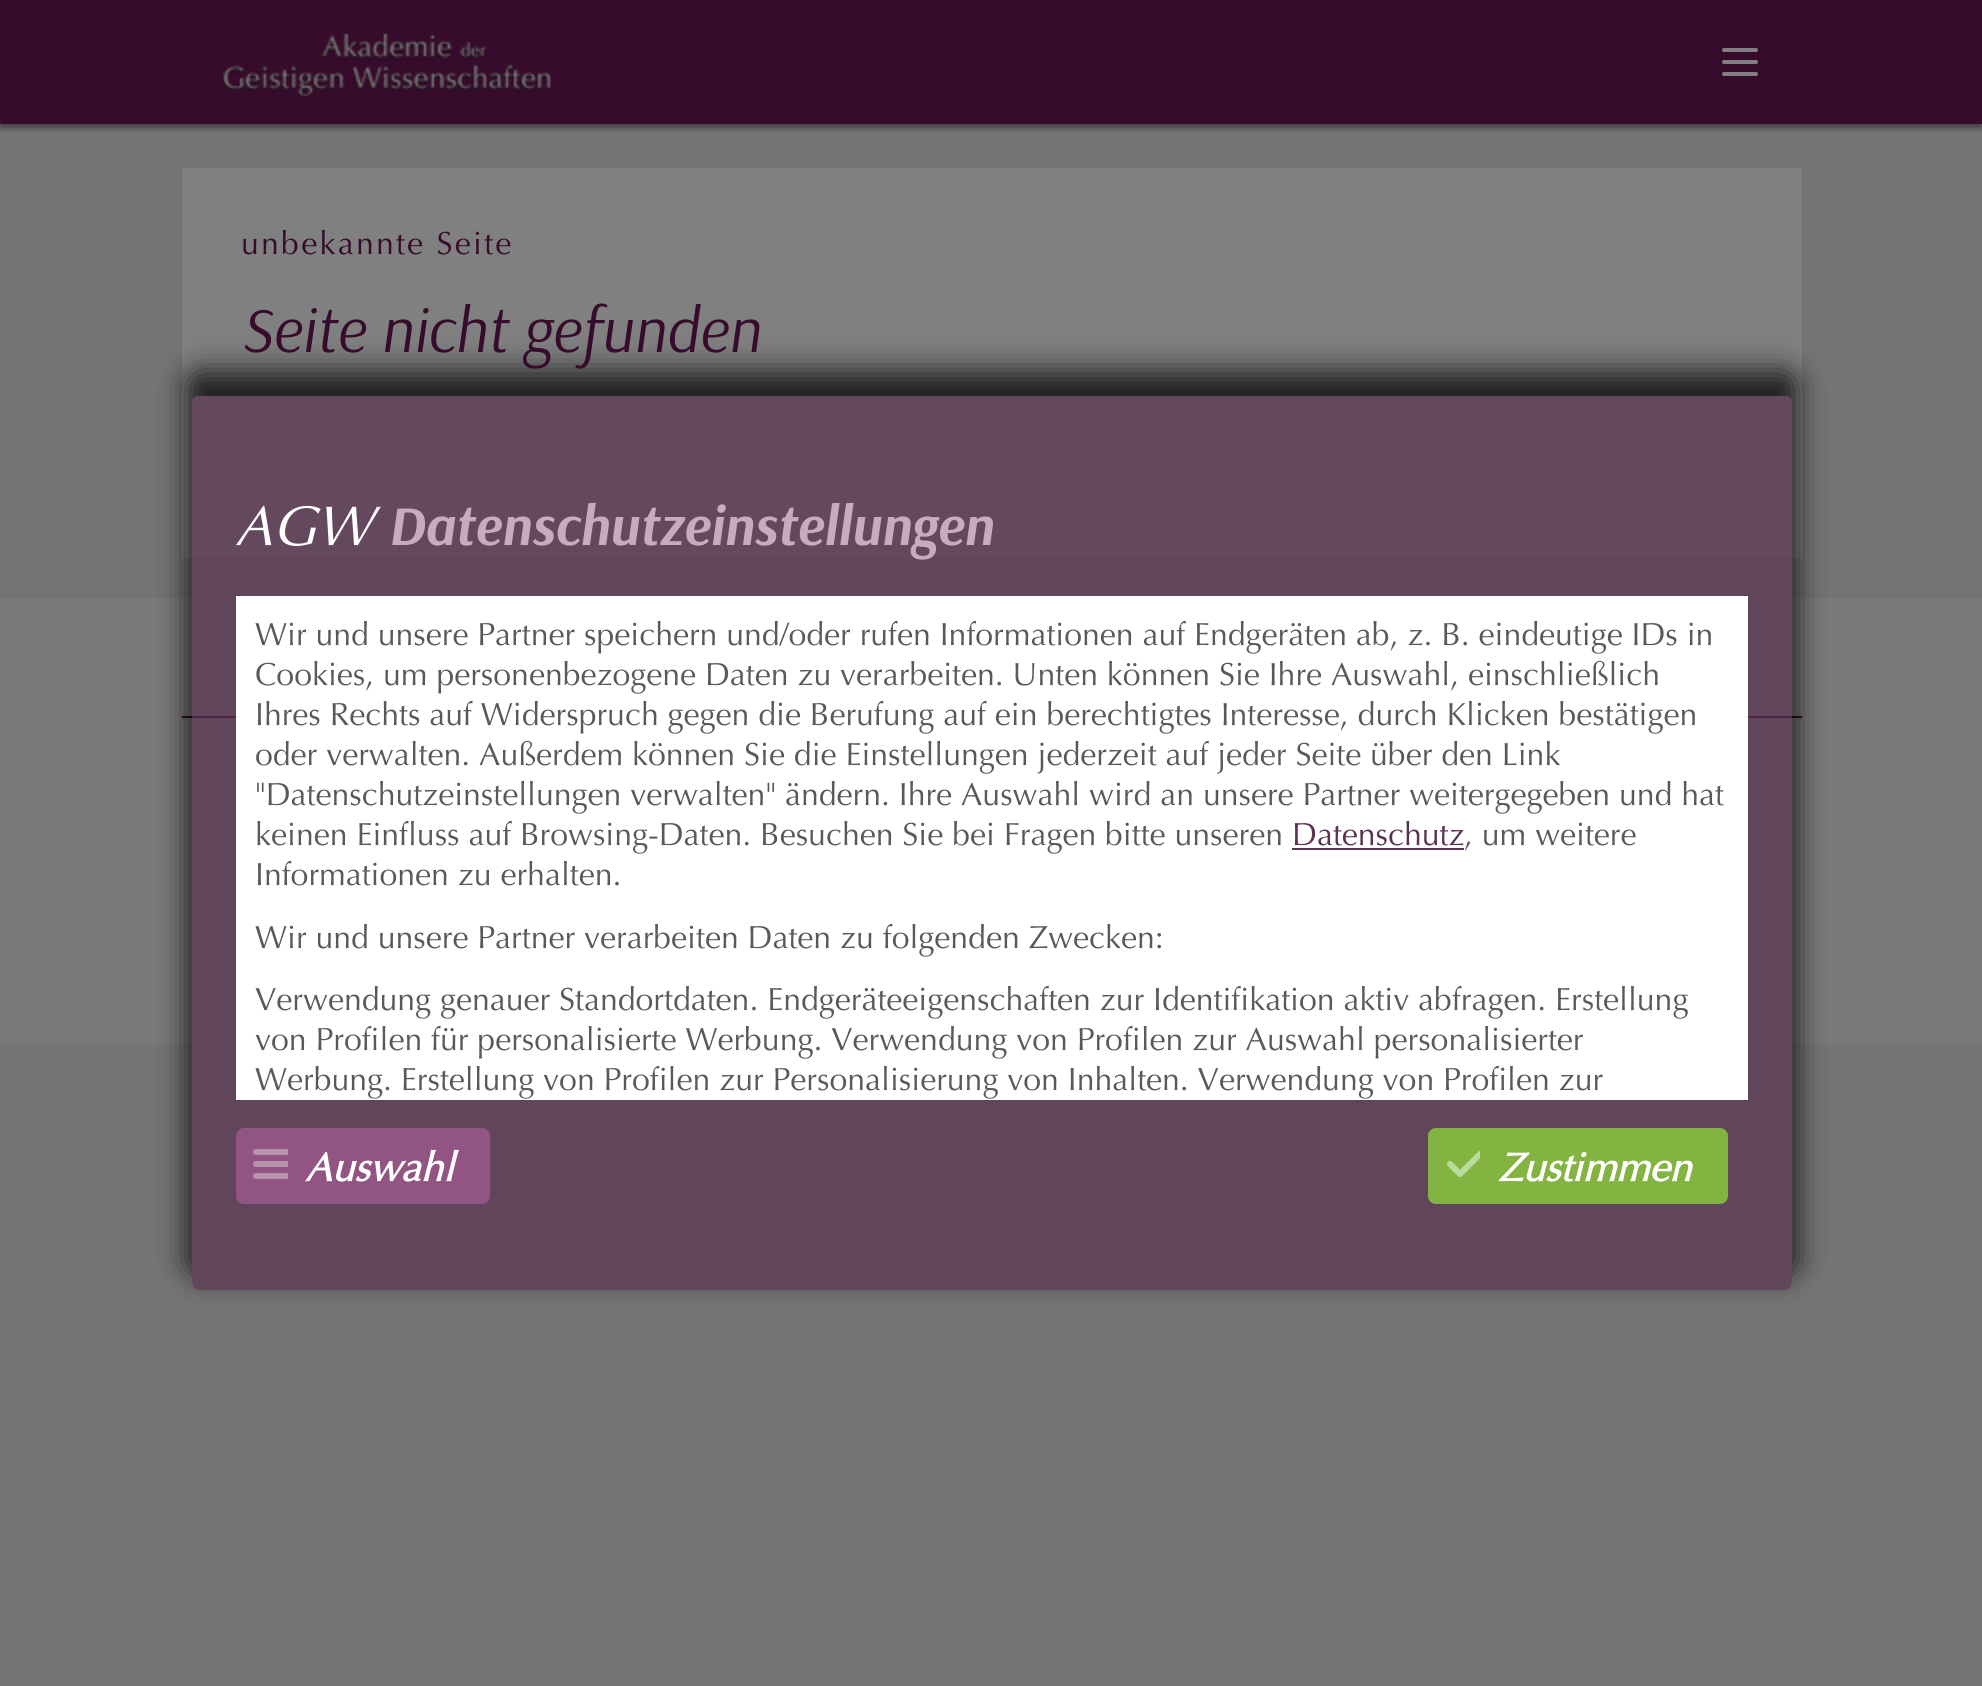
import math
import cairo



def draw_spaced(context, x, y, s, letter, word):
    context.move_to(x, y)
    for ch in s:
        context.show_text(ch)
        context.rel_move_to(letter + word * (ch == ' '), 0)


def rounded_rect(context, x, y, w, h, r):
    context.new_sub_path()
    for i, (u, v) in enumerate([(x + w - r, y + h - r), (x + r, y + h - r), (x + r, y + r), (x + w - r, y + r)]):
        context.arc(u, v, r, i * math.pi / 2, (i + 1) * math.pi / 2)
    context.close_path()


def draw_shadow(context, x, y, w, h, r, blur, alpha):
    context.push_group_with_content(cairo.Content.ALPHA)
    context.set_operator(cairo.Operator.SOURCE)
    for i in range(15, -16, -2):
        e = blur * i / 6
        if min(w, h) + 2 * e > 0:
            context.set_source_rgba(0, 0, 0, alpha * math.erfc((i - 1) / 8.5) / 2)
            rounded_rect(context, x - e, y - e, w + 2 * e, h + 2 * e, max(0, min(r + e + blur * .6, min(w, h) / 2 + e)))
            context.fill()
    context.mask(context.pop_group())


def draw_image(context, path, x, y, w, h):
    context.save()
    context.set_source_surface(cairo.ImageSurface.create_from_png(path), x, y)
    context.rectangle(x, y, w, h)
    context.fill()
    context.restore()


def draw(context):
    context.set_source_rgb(116 / 255, 116 / 255, 116 / 255)
    context.paint()
    context.set_source_rgb(0, 0, 0)
    draw_shadow(context, 0, 4, 1982, 124, 0, 3, 0.45)
    context.set_source_rgb(54 / 255, 11 / 255, 44 / 255)
    context.rectangle(0, 0, 1982, 124)
    context.fill()
    draw_image(context, "images/1.png", 222, 32, 330, 67)
    context.new_path()
    context.move_to(1724, 50)
    context.line_to(1756, 50)
    context.move_to(1724, 62)
    context.line_to(1756, 62)
    context.move_to(1724, 74)
    context.line_to(1756, 74)
    context.set_source_rgb(128 / 255, 128 / 255, 128 / 255)
    context.set_line_width(4)
    context.set_line_cap(cairo.LineCap.ROUND)
    context.set_line_join(cairo.LineJoin.ROUND)
    context.stroke()
    context.rectangle(182, 168, 1620, 390)
    context.fill()
    context.set_source_rgb(121 / 255, 121 / 255, 121 / 255)
    context.rectangle(0, 598, 1982, 446)
    context.fill()
    context.set_source_rgb(54 / 255, 11 / 255, 44 / 255)
    context.rectangle(182, 716, 1620, 2)
    context.fill()
    context.save()
    context.set_fill_rule(cairo.FillRule.EVEN_ODD)
    context.new_path()
    context.move_to(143, 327)
    context.line_to(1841, 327)
    context.line_to(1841, 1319)
    context.line_to(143, 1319)
    context.close_path()
    context.move_to(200, 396)
    context.line_to(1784, 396)
    context.curve_to(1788.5, 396, 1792, 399.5, 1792, 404)
    context.line_to(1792, 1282)
    context.curve_to(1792, 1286.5, 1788.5, 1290, 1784, 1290)
    context.line_to(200, 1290)
    context.curve_to(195.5, 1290, 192, 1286.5, 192, 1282)
    context.line_to(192, 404)
    context.curve_to(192, 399.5, 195.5, 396, 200, 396)
    context.close_path()
    context.clip()
    context.set_source_rgb(0, 0, 0)
    draw_shadow(context, 186, 370, 1612, 906, 14, 14, 0.74)
    context.restore()
    context.set_source_rgba(89 / 255, 51 / 255, 81 / 255, 0.7)
    rounded_rect(context, 192, 396, 1600, 894, 8)
    context.fill()
    context.set_source_rgb(1, 1, 1)
    context.rectangle(236, 596, 1512, 504)
    context.fill()
    context.set_source_rgb(89 / 255, 51 / 255, 81 / 255)
    context.rectangle(1292, 848, 172, 2)
    context.fill()
    context.set_source_rgb(146 / 255, 84 / 255, 131 / 255)
    rounded_rect(context, 236, 1128, 254, 76, 8)
    context.fill()
    context.save()
    context.rectangle(248, 1140, 40, 40)
    context.clip()
    context.new_path()
    context.move_to(256, 1152)
    context.line_to(288, 1152)
    context.move_to(256, 1164)
    context.line_to(288, 1164)
    context.move_to(256, 1176)
    context.line_to(288, 1176)
    context.set_source_rgb(184 / 255, 146 / 255, 173 / 255)
    context.set_line_width(6)
    context.stroke()
    context.restore()
    context.set_source_rgb(131 / 255, 179 / 255, 64 / 255)
    rounded_rect(context, 1428, 1128, 300, 76, 8)
    context.fill()
    context.save()
    context.rectangle(1440, 1140, 40, 40)
    context.clip()
    context.new_path()
    context.move_to(1450, 1164)
    context.line_to(1460, 1174)
    context.line_to(1480, 1154)
    context.set_source_rgb(187 / 255, 219 / 255, 157 / 255)
    context.set_line_width(6)
    context.stroke()
    context.restore()
    context.select_font_face("Optima")
    context.set_font_size(32)
    context.set_source_rgb(54 / 255, 11 / 255, 44 / 255)
    draw_spaced(context, 241, 254, "unbekannte Seite", 2.25, 0)
    context.select_font_face("Arsenal", cairo.FontSlant.ITALIC)
    context.set_font_size(64)
    context.move_to(241, 352)
    context.show_text("Seite nicht gefunden")
    context.select_font_face("Optima", cairo.FontSlant.ITALIC)
    context.set_font_size(56)
    context.set_source_rgb(1, 1, 1)
    context.move_to(235, 545)
    context.show_text("AGW")
    context.select_font_face("Arsenal", cairo.FontSlant.ITALIC, cairo.FontWeight.BOLD)
    context.set_source_rgb(200 / 255, 171 / 255, 192 / 255)
    context.move_to(388, 545)
    context.show_text("Datenschutzeinstellungen")
    context.select_font_face("Optima")
    context.set_font_size(32)
    context.set_source_rgb(89 / 255, 89 / 255, 89 / 255)
    context.move_to(255, 645)
    context.show_text("Wir und unsere Partner speichern und/oder rufen Informationen auf Endgeräten ab, z. B. eindeutige IDs in")
    context.move_to(255, 685)
    context.show_text("Cookies, um personenbezogene Daten zu verarbeiten. Unten können Sie Ihre Auswahl, einschließlich")
    context.move_to(255, 725)
    context.show_text("Ihres Rechts auf Widerspruch gegen die Berufung auf ein berechtigtes Interesse, durch Klicken bestätigen")
    context.move_to(255, 765)
    context.show_text("oder verwalten. Außerdem können Sie die Einstellungen jederzeit auf jeder Seite über den Link")
    context.move_to(255, 805)
    context.show_text("\"Datenschutzeinstellungen verwalten\" ändern. Ihre Auswahl wird an unsere Partner weitergegeben und hat")
    context.move_to(255, 845)
    context.show_text("keinen Einfluss auf Browsing-Daten. Besuchen Sie bei Fragen bitte unseren")
    context.set_source_rgb(89 / 255, 51 / 255, 81 / 255)
    context.move_to(1292, 845)
    context.show_text("Datenschutz")
    context.set_source_rgb(89 / 255, 89 / 255, 89 / 255)
    context.move_to(1464, 845)
    context.show_text(", um weitere")
    context.move_to(255, 885)
    context.show_text("Informationen zu erhalten.")
    context.move_to(255, 948)
    context.show_text("Wir und unsere Partner verarbeiten Daten zu folgenden Zwecken:")
    context.move_to(255, 1010)
    context.show_text("Verwendung genauer Standortdaten. Endgeräteeigenschaften zur Identifikation aktiv abfragen. Erstellung")
    context.move_to(255, 1050)
    context.show_text("von Profilen für personalisierte Werbung. Verwendung von Profilen zur Auswahl personalisierter")
    context.move_to(255, 1090)
    context.show_text("Werbung. Erstellung von Profilen zur Personalisierung von Inhalten. Verwendung von Profilen zur")
    context.select_font_face("Optima", cairo.FontSlant.ITALIC, cairo.FontWeight.BOLD)
    context.set_font_size(40)
    context.set_source_rgb(1, 1, 1)
    context.move_to(305, 1181)
    context.show_text("Auswahl")
    context.move_to(1498, 1181)
    context.show_text("Zustimmen")


surface = cairo.ImageSurface(cairo.Format.RGB24, 1982, 1686)
context = cairo.Context(surface)
options = cairo.FontOptions()
options.set_hint_metrics(cairo.HintMetrics.OFF)
options.set_hint_style(cairo.HintStyle.NONE)
context.set_font_options(options)
context.set_miter_limit(4)
draw(context)
surface.write_to_png("out.png")
